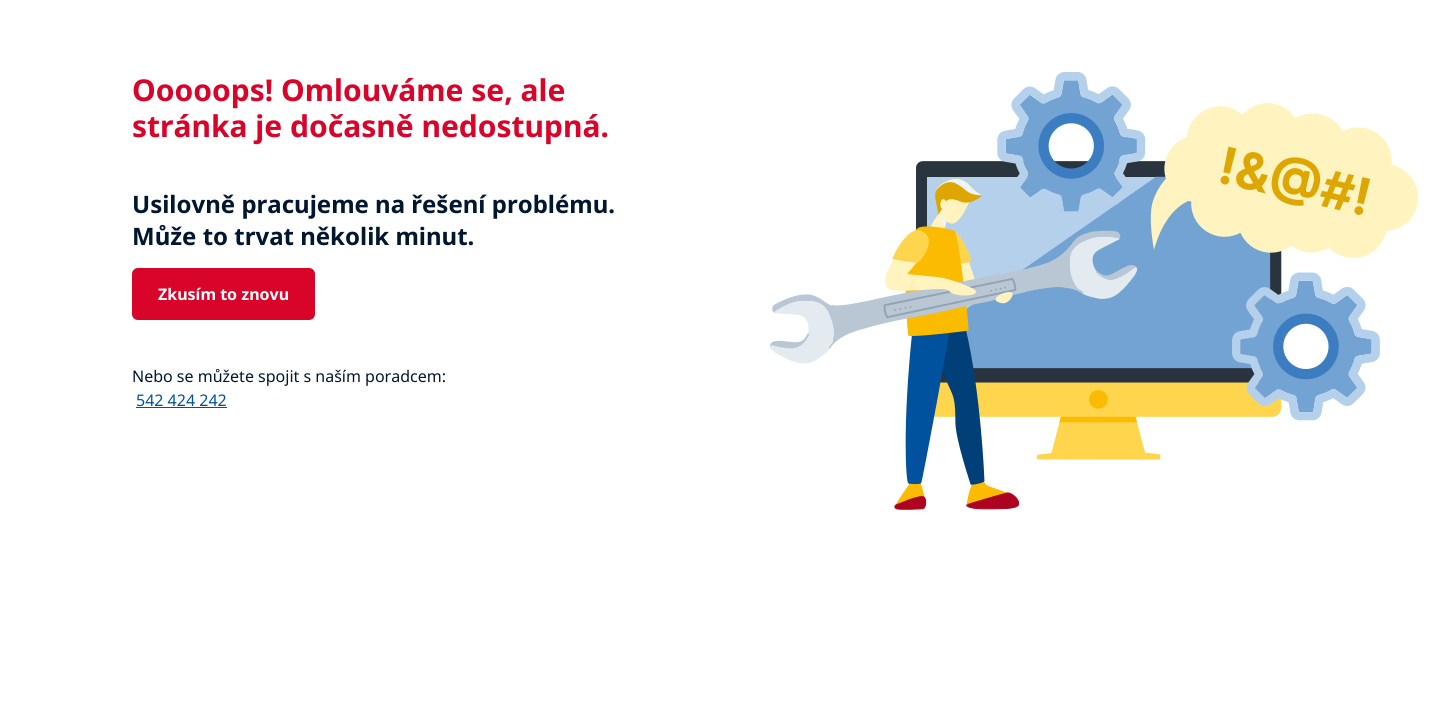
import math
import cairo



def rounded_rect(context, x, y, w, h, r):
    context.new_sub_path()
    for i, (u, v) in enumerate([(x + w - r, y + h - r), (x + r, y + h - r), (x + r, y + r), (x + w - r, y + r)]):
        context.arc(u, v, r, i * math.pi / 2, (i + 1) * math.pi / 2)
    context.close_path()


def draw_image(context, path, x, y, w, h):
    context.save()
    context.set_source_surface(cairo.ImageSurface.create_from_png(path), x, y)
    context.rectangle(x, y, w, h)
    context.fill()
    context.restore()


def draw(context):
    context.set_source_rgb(1, 1, 1)
    context.paint()
    context.set_source_rgb(217 / 255, 4 / 255, 41 / 255)
    rounded_rect(context, 133, 269, 181, 50, 5)
    context.fill_preserve()
    context.stroke()
    context.set_source_rgb(0, 81 / 255, 158 / 255)
    context.rectangle(136, 407, 91, 1)
    context.fill()
    draw_image(context, "images/1.png", 769, 72, 649, 438)
    context.select_font_face("Noto Sans", cairo.FontSlant.NORMAL, cairo.FontWeight.BOLD)
    context.set_font_size(30)
    context.set_source_rgb(217 / 255, 4 / 255, 41 / 255)
    context.move_to(132, 101)
    context.show_text("Ooooops! Omlouváme se, ale")
    context.move_to(132, 137)
    context.show_text("stránka je dočasně nedostupná.")
    context.set_font_size(24)
    context.set_source_rgb(1 / 255, 23 / 255, 47 / 255)
    context.move_to(132, 213)
    context.show_text("Usilovně pracujeme na řešení problému.")
    context.move_to(132, 245)
    context.show_text("Může to trvat několik minut.")
    context.set_font_size(16)
    context.set_source_rgb(1, 1, 1)
    context.move_to(158, 300)
    context.show_text("Zkusím to znovu")
    context.select_font_face("Noto Sans")
    context.set_source_rgb(1 / 255, 23 / 255, 47 / 255)
    context.move_to(132, 382)
    context.show_text("Nebo se můžete spojit s naším poradcem:")
    context.set_source_rgb(0, 81 / 255, 158 / 255)
    context.move_to(136, 406)
    context.show_text("542 424 242")


surface = cairo.ImageSurface(cairo.Format.RGB24, 1456, 704)
context = cairo.Context(surface)
options = cairo.FontOptions()
options.set_hint_metrics(cairo.HintMetrics.OFF)
options.set_hint_style(cairo.HintStyle.NONE)
context.set_font_options(options)
context.set_miter_limit(4)
draw(context)
surface.write_to_png("out.png")
